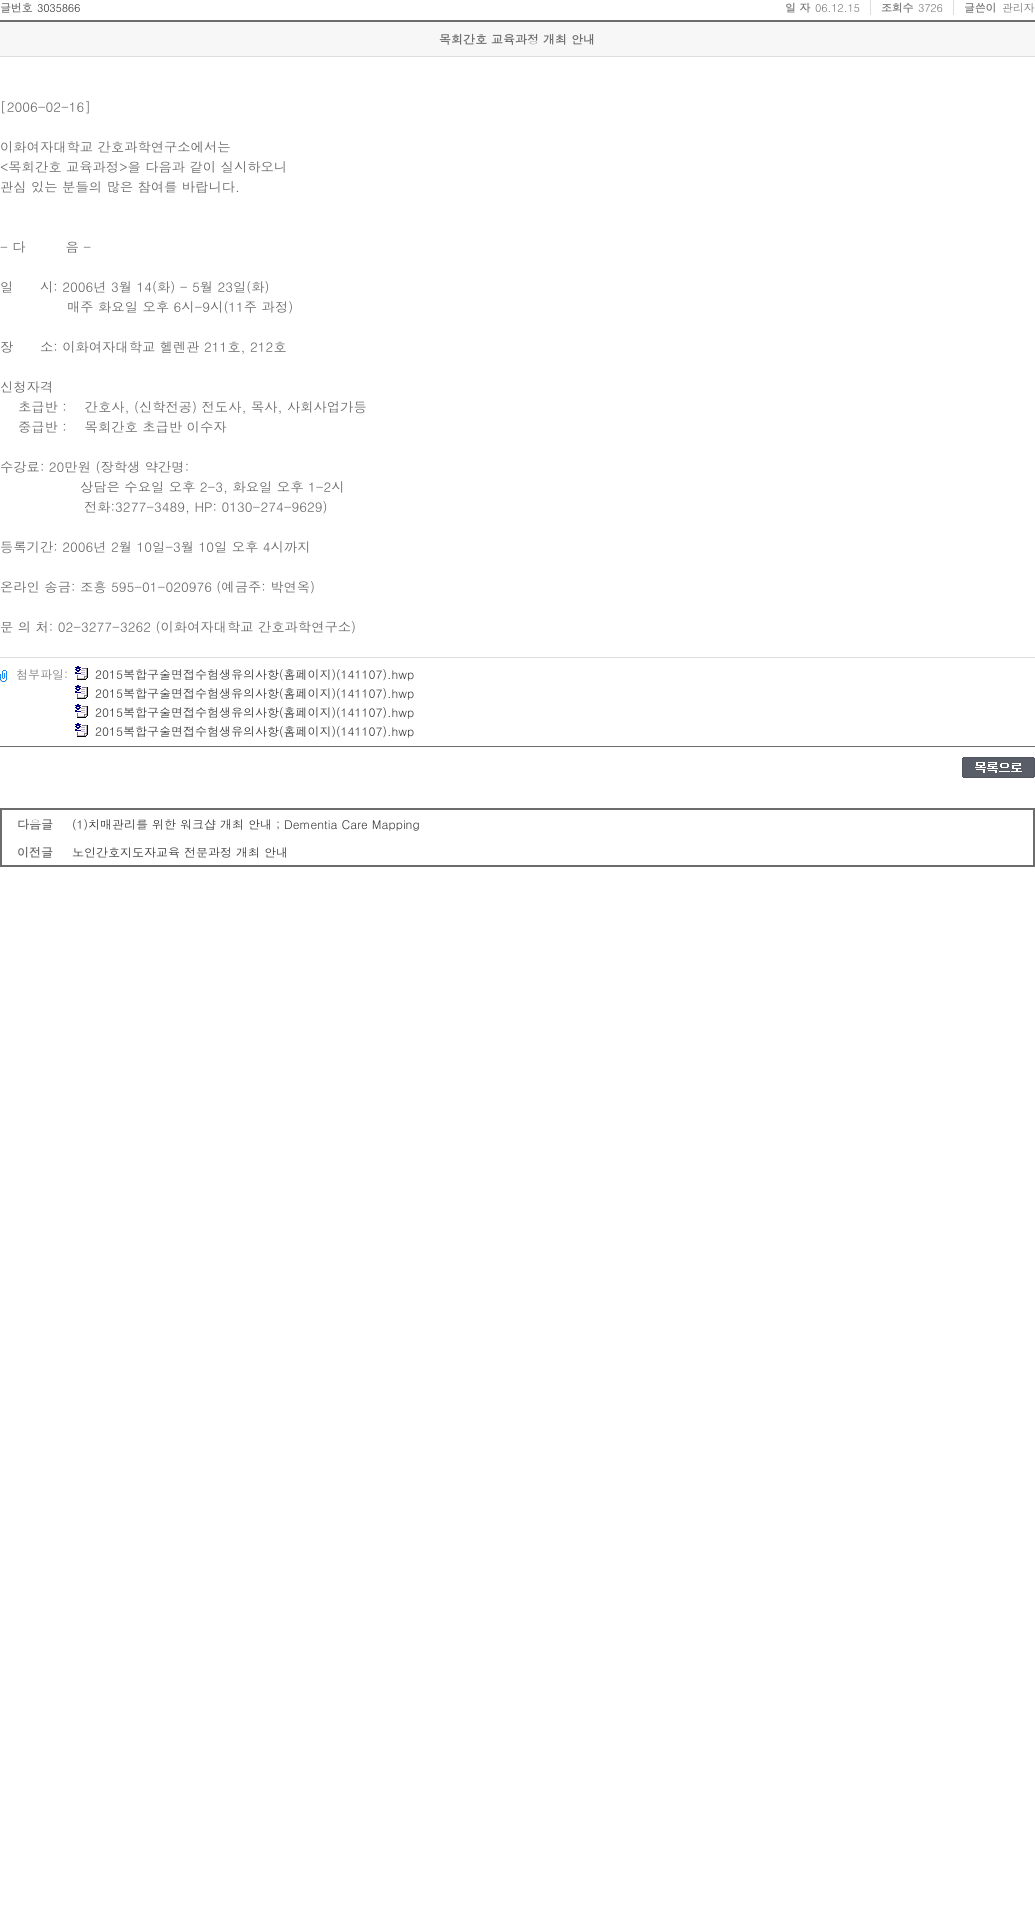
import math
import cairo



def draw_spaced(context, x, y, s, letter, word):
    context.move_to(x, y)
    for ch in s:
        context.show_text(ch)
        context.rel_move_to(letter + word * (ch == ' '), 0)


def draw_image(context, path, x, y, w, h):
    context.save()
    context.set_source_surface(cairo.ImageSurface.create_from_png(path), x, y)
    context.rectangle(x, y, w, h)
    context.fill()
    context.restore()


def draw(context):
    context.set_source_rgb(1, 1, 1)
    context.paint()
    context.set_source_rgb(221 / 255, 221 / 255, 221 / 255)
    context.rectangle(870, 0, 1, 15)
    context.fill()
    context.rectangle(953, 0, 1, 15)
    context.fill()
    context.set_source_rgb(108 / 255, 108 / 255, 108 / 255)
    context.rectangle(0, 20, 1035, 2)
    context.fill()
    context.rectangle(0, 746, 1035, 1)
    context.fill()
    context.set_source_rgb(247 / 255, 247 / 255, 247 / 255)
    context.rectangle(0, 22, 1035, 34)
    context.fill()
    context.set_source_rgb(221 / 255, 221 / 255, 221 / 255)
    context.rectangle(0, 56, 1035, 1)
    context.fill()
    context.rectangle(0, 657, 1035, 1)
    context.fill()
    draw_image(context, "images/1.png", 0, 670, 7, 12)
    draw_image(context, "images/2.png", 75, 666, 13, 14)
    draw_image(context, "images/2.png", 75, 685, 13, 14)
    draw_image(context, "images/2.png", 75, 704, 13, 14)
    draw_image(context, "images/2.png", 75, 723, 13, 14)
    draw_image(context, "images/3.png", 962, 757, 73, 21)
    context.rectangle(1, 809, 1033, 57)
    context.set_source_rgb(108 / 255, 108 / 255, 108 / 255)
    context.stroke()
    context.select_font_face("Dotum", cairo.FontSlant.NORMAL, cairo.FontWeight.BOLD)
    context.set_font_size(11)
    context.set_source_rgb(122 / 255, 122 / 255, 122 / 255)
    draw_spaced(context, 0, 12, "글번호", -0.25, 0)
    context.select_font_face("Dotum")
    context.set_source_rgb(51 / 255, 51 / 255, 51 / 255)
    draw_spaced(context, 37, 12, "3035866", -0.25, 0)
    context.select_font_face("Dotum", cairo.FontSlant.NORMAL, cairo.FontWeight.BOLD)
    context.set_source_rgb(122 / 255, 122 / 255, 122 / 255)
    draw_spaced(context, 785, 12, "일 자", -0.25, 0)
    context.select_font_face("Dotum")
    draw_spaced(context, 815, 12, "06.12.15", -0.25, 0)
    context.select_font_face("Dotum", cairo.FontSlant.NORMAL, cairo.FontWeight.BOLD)
    draw_spaced(context, 881, 12, "조회수", -0.25, 0)
    context.select_font_face("Dotum")
    draw_spaced(context, 918, 12, "3726", -0.25, 0)
    context.select_font_face("Dotum", cairo.FontSlant.NORMAL, cairo.FontWeight.BOLD)
    draw_spaced(context, 964, 12, "글쓴이", -0.25, 0)
    context.select_font_face("Dotum")
    draw_spaced(context, 1002, 12, "관리자", -0.25, 0)
    context.select_font_face("Dotum", cairo.FontSlant.NORMAL, cairo.FontWeight.BOLD)
    context.set_font_size(12)
    context.set_source_rgb(108 / 255, 108 / 255, 108 / 255)
    context.move_to(439, 44)
    context.show_text("목회간호 교육과정 개최 안내")
    context.select_font_face("Dotum")
    context.set_font_size(13.3)
    context.set_source_rgb(102 / 255, 102 / 255, 102 / 255)
    context.move_to(0, 112)
    context.show_text("[2006-02-16]")
    context.move_to(0, 152)
    context.show_text("이화여자대학교 간호과학연구소에서는")
    context.move_to(0, 172)
    context.show_text("<목회간호 교육과정>을 다음과 같이 실시하오니")
    context.move_to(0, 192)
    context.show_text("관심 있는 분들의 많은 참여를 바랍니다.")
    context.move_to(0, 252)
    context.show_text("- 다　　　음 -")
    context.move_to(0, 292)
    context.show_text("일　　시: 2006년 3월 14(화) - 5월 23일(화)")
    context.move_to(67, 312)
    context.show_text("매주 화요일 오후 6시-9시(11주 과정)")
    context.move_to(0, 352)
    context.show_text("장　　소: 이화여자대학교 헬렌관 211호, 212호")
    context.move_to(0, 392)
    context.show_text("신청자격")
    context.move_to(18, 412)
    context.show_text("초급반 :　 간호사, (신학전공) 전도사, 목사, 사회사업가등")
    context.move_to(18, 432)
    context.show_text("중급반 :　 목회간호 초급반 이수자")
    context.move_to(0, 472)
    context.show_text("수강료: 20만원 (장학생 약간명:")
    context.move_to(80, 492)
    context.show_text("상담은 수요일 오후 2-3, 화요일 오후 1-2시")
    context.move_to(84, 512)
    context.show_text("전화:3277-3489, HP: 0130-274-9629)")
    context.move_to(0, 552)
    context.show_text("등록기간: 2006년 2월 10일-3월 10일 오후 4시까지")
    context.move_to(0, 592)
    context.show_text("온라인 송금: 조흥 595-01-020976 (예금주: 박연옥)")
    context.move_to(0, 632)
    context.show_text("문 의 처: 02-3277-3262 (이화여자대학교 간호과학연구소)")
    context.set_font_size(12)
    context.set_source_rgb(122 / 255, 122 / 255, 122 / 255)
    context.move_to(16, 679)
    context.show_text("첨부파일:")
    context.set_source_rgb(51 / 255, 51 / 255, 51 / 255)
    context.move_to(95, 679)
    context.show_text("2015복합구술면접수험생유의사항(홈페이지)(141107).hwp")
    context.move_to(95, 698)
    context.show_text("2015복합구술면접수험생유의사항(홈페이지)(141107).hwp")
    context.move_to(95, 717)
    context.show_text("2015복합구술면접수험생유의사항(홈페이지)(141107).hwp")
    context.move_to(95, 736)
    context.show_text("2015복합구술면접수험생유의사항(홈페이지)(141107).hwp")
    context.select_font_face("Dotum", cairo.FontSlant.NORMAL, cairo.FontWeight.BOLD)
    context.set_source_rgb(108 / 255, 108 / 255, 108 / 255)
    context.move_to(17, 829)
    context.show_text("다음글")
    context.select_font_face("Dotum")
    context.set_source_rgb(51 / 255, 51 / 255, 51 / 255)
    context.move_to(72, 829)
    context.show_text("(1)치매관리를 위한 워크샵 개최 안내 ; Dementia Care Mapping")
    context.select_font_face("Dotum", cairo.FontSlant.NORMAL, cairo.FontWeight.BOLD)
    context.set_source_rgb(108 / 255, 108 / 255, 108 / 255)
    context.move_to(17, 857)
    context.show_text("이전글")
    context.select_font_face("Dotum")
    context.set_source_rgb(51 / 255, 51 / 255, 51 / 255)
    context.move_to(72, 857)
    context.show_text("노인간호지도자교육 전문과정 개최 안내")


surface = cairo.ImageSurface(cairo.Format.RGB24, 1035, 1931)
context = cairo.Context(surface)
options = cairo.FontOptions()
options.set_hint_metrics(cairo.HintMetrics.OFF)
options.set_hint_style(cairo.HintStyle.NONE)
context.set_font_options(options)
context.set_miter_limit(4)
draw(context)
surface.write_to_png("out.png")
